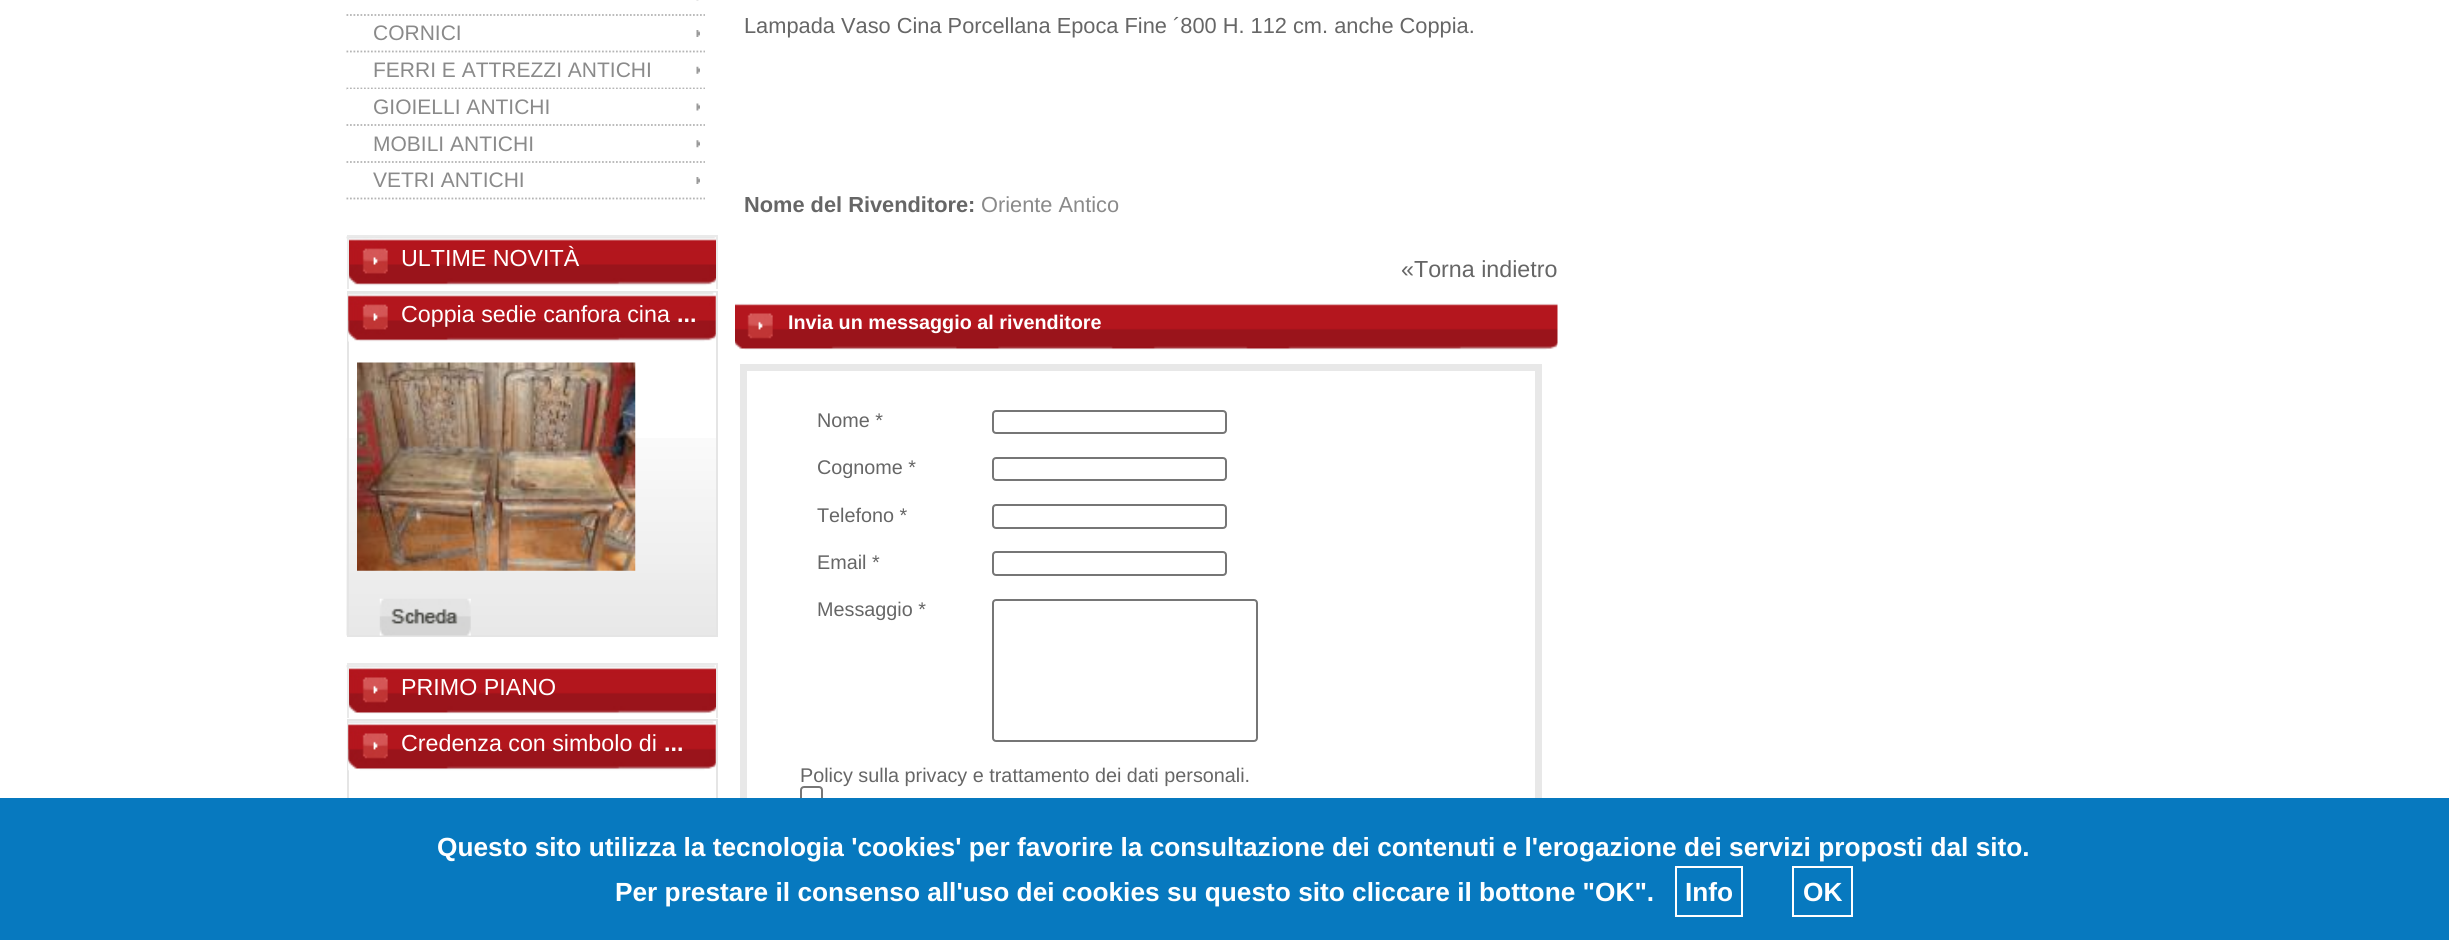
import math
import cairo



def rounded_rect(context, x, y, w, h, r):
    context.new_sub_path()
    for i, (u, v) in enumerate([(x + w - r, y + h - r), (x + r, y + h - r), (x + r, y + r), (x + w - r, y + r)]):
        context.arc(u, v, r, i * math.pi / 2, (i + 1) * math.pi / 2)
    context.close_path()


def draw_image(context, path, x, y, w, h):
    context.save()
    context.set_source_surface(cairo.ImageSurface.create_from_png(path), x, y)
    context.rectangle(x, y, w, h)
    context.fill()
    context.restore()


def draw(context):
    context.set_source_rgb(1, 1, 1)
    context.paint()
    draw_image(context, "images/1.png", 696, 0, 3, 1)
    context.new_path()
    context.move_to(346.5, 15)
    context.line_to(705, 15)
    context.set_source_rgb(181 / 255, 181 / 255, 181 / 255)
    context.set_line_width(1.8)
    context.set_dash([1.75, 1.75])
    context.stroke()
    draw_image(context, "images/2.png", 696, 30, 4, 7)
    context.new_path()
    context.move_to(346.5, 51.5)
    context.line_to(705, 51.5)
    context.stroke()
    draw_image(context, "images/3.png", 696, 66, 4, 8)
    context.new_path()
    context.move_to(346.5, 88.5)
    context.line_to(705, 88.5)
    context.stroke()
    context.set_source_rgb(1, 1, 1)
    context.rectangle(347, 89, 358, 1)
    context.fill()
    draw_image(context, "images/4.png", 696, 103, 4, 8)
    context.new_path()
    context.move_to(346.5, 125)
    context.line_to(705, 125)
    context.set_source_rgb(181 / 255, 181 / 255, 181 / 255)
    context.stroke()
    draw_image(context, "images/5.png", 696, 140, 4, 8)
    context.new_path()
    context.move_to(346.5, 162)
    context.line_to(705, 162)
    context.stroke()
    draw_image(context, "images/2.png", 696, 177, 4, 7)
    context.new_path()
    context.move_to(346.5, 198.5)
    context.line_to(705, 198.5)
    context.stroke()
    draw_image(context, "images/6.png", 346, 236, 370, 50)
    context.set_source_rgb(234 / 255, 234 / 255, 234 / 255)
    context.rectangle(347, 235, 371, 2)
    context.fill()
    context.rectangle(716, 235, 2, 54)
    context.fill()
    context.rectangle(347, 235, 2, 54)
    context.fill()
    draw_image(context, "images/7.png", 346, 438, 370, 198)
    context.rectangle(348, 292, 369, 344)
    context.set_source_rgb(229 / 255, 229 / 255, 229 / 255)
    context.set_line_width(2)
    context.set_dash([])
    context.stroke()
    draw_image(context, "images/8.png", 348, 292, 368, 50)
    draw_image(context, "images/9.png", 357, 362, 279, 209)
    draw_image(context, "images/10.png", 379, 598, 92, 38)
    draw_image(context, "images/11.png", 346, 665, 370, 49)
    context.set_source_rgb(234 / 255, 234 / 255, 234 / 255)
    context.rectangle(347, 663, 371, 2)
    context.fill()
    context.rectangle(716, 663, 2, 55)
    context.fill()
    context.rectangle(347, 663, 2, 55)
    context.fill()
    context.rectangle(348, 720, 369, 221)
    context.set_source_rgb(229 / 255, 229 / 255, 229 / 255)
    context.stroke()
    draw_image(context, "images/12.png", 348, 721, 368, 50)
    draw_image(context, "images/13.png", 735, 303, 823, 47)
    context.rectangle(743.5, 367.5, 795, 543)
    context.set_source_rgb(232 / 255, 232 / 255, 232 / 255)
    context.set_line_width(7)
    context.stroke()
    rounded_rect(context, 993, 411, 233, 22, 3)
    context.set_source_rgb(118 / 255, 118 / 255, 118 / 255)
    context.set_line_width(2)
    context.stroke()
    rounded_rect(context, 993, 458, 233, 22, 3)
    context.stroke()
    rounded_rect(context, 993, 505, 233, 23, 3)
    context.stroke()
    rounded_rect(context, 993, 552, 233, 23, 3)
    context.stroke()
    rounded_rect(context, 993, 600, 264, 141, 3)
    context.stroke()
    context.select_font_face("Liberation Sans")
    context.set_font_size(21)
    context.set_source_rgb(138 / 255, 138 / 255, 138 / 255)
    context.move_to(373, 40)
    context.show_text("CORNICI")
    context.move_to(373, 77)
    context.show_text("FERRI E ATTREZZI ANTICHI")
    context.move_to(373, 114)
    context.show_text("GIOIELLI ANTICHI")
    context.move_to(373, 151)
    context.show_text("MOBILI ANTICHI")
    context.move_to(373, 187)
    context.show_text("VETRI ANTICHI")
    context.set_font_size(23.25)
    context.set_source_rgb(1, 1, 1)
    context.move_to(401, 266)
    context.show_text("ULTIME NOVITÀ")
    context.move_to(401, 322)
    context.show_text("Coppia sedie canfora cina")
    context.select_font_face("Liberation Sans", cairo.FontSlant.NORMAL, cairo.FontWeight.BOLD)
    context.move_to(677, 322)
    context.show_text("...")
    context.select_font_face("Liberation Sans")
    context.move_to(401, 695)
    context.show_text("PRIMO PIANO")
    context.move_to(401, 751)
    context.show_text("Credenza con simbolo di")
    context.select_font_face("Liberation Sans", cairo.FontSlant.NORMAL, cairo.FontWeight.BOLD)
    context.move_to(664, 751)
    context.show_text("...")
    context.select_font_face("Liberation Sans")
    context.set_font_size(21.8)
    context.set_source_rgb(102 / 255, 102 / 255, 102 / 255)
    context.move_to(744, 33)
    context.show_text("Lampada Vaso Cina Porcellana Epoca Fine ´800 H. 112 cm. anche Coppia.")
    context.select_font_face("Liberation Sans", cairo.FontSlant.NORMAL, cairo.FontWeight.BOLD)
    context.move_to(744, 212)
    context.show_text("Nome del Rivenditore:")
    context.select_font_face("Liberation Sans")
    context.set_source_rgb(138 / 255, 138 / 255, 138 / 255)
    context.move_to(981, 212)
    context.show_text("Oriente Antico")
    context.set_font_size(23.25)
    context.set_source_rgb(102 / 255, 102 / 255, 102 / 255)
    context.move_to(1401, 277)
    context.show_text("«Torna indietro")
    context.select_font_face("Liberation Sans", cairo.FontSlant.NORMAL, cairo.FontWeight.BOLD)
    context.set_font_size(19.8)
    context.set_source_rgb(1, 1, 1)
    context.move_to(788, 329)
    context.show_text("Invia un messaggio al rivenditore")
    context.select_font_face("Liberation Sans")
    context.set_source_rgb(102 / 255, 102 / 255, 102 / 255)
    context.move_to(817, 427)
    context.show_text("Nome *")
    context.move_to(817, 474)
    context.show_text("Cognome *")
    context.move_to(817, 522)
    context.show_text("Telefono *")
    context.move_to(817, 569)
    context.show_text("Email *")
    context.move_to(817, 616)
    context.show_text("Messaggio *")
    context.move_to(800, 782)
    context.show_text("Policy sulla privacy e trattamento dei dati personali.")
    rounded_rect(context, 801, 787, 21, 21, 3)
    context.set_source_rgb(118 / 255, 118 / 255, 118 / 255)
    context.stroke()
    context.set_source_rgb(7 / 255, 121 / 255, 191 / 255)
    context.rectangle(0, 798, 2449, 142)
    context.fill()
    context.select_font_face("Liberation Sans", cairo.FontSlant.NORMAL, cairo.FontWeight.BOLD)
    context.set_font_size(26.25)
    context.set_source_rgb(1, 1, 1)
    context.move_to(437, 856)
    context.show_text("Questo sito utilizza la tecnologia 'cookies' per favorire la consultazione dei contenuti e l'erogazione dei servizi proposti dal sito.")
    context.move_to(615, 901)
    context.show_text("Per prestare il consenso all'uso dei cookies su questo sito cliccare il bottone \"OK\".")
    context.rectangle(1676, 867, 66, 49)
    context.stroke()
    context.move_to(1685, 901)
    context.show_text("Info")
    context.rectangle(1793, 867, 59, 49)
    context.stroke()
    context.move_to(1803, 901)
    context.show_text("OK")


surface = cairo.ImageSurface(cairo.Format.RGB24, 2449, 940)
context = cairo.Context(surface)
options = cairo.FontOptions()
options.set_hint_metrics(cairo.HintMetrics.OFF)
options.set_hint_style(cairo.HintStyle.NONE)
context.set_font_options(options)
context.set_miter_limit(4)
draw(context)
surface.write_to_png("out.png")
